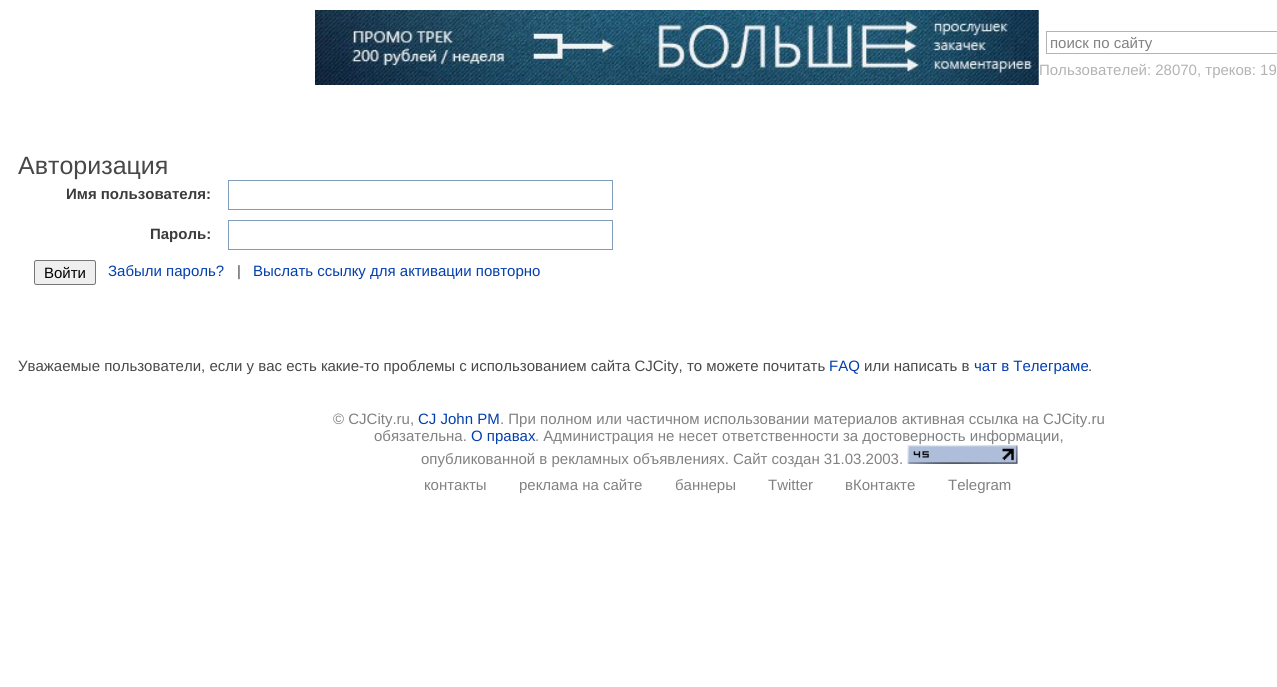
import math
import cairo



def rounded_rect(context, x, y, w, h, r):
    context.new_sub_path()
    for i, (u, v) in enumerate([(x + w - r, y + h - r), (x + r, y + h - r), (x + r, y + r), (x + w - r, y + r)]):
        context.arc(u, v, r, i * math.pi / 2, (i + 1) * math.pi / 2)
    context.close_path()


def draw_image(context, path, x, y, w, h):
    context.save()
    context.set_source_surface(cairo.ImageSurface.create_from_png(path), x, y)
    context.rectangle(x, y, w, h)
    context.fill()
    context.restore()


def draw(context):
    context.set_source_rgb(1, 1, 1)
    context.paint()
    draw_image(context, "images/1.png", 315, 10, 724, 75)
    context.rectangle(1046.5, 31.5, 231, 22)
    context.set_source_rgb(179 / 255, 179 / 255, 179 / 255)
    context.set_line_width(1)
    context.stroke()
    context.rectangle(228.5, 180.5, 384, 29)
    context.set_source_rgb(127 / 255, 157 / 255, 185 / 255)
    context.stroke()
    context.rectangle(228.5, 220.5, 384, 29)
    context.stroke()
    context.set_source_rgb(239 / 255, 239 / 255, 239 / 255)
    rounded_rect(context, 34.5, 260.5, 61, 24, 2)
    context.fill_preserve()
    context.set_source_rgb(118 / 255, 118 / 255, 118 / 255)
    context.stroke()
    draw_image(context, "images/2.png", 907, 445, 111, 19)
    context.select_font_face("Liberation Sans")
    context.set_font_size(15)
    context.set_source_rgb(129 / 255, 129 / 255, 129 / 255)
    context.move_to(1050, 48)
    context.show_text("поиск по сайту")
    context.set_source_rgb(179 / 255, 179 / 255, 179 / 255)
    context.move_to(1039, 75)
    context.show_text("Пользователей: 28070, треков: 19")
    context.set_font_size(25)
    context.set_source_rgb(72 / 255, 72 / 255, 72 / 255)
    context.move_to(18, 174)
    context.show_text("Авторизация")
    context.select_font_face("Liberation Sans", cairo.FontSlant.NORMAL, cairo.FontWeight.BOLD)
    context.set_font_size(15)
    context.set_source_rgb(59 / 255, 59 / 255, 59 / 255)
    context.move_to(66, 199)
    context.show_text("Имя пользователя:")
    context.move_to(150, 239)
    context.show_text("Пароль:")
    context.select_font_face("Liberation Sans")
    context.set_source_rgb(0, 0, 0)
    context.move_to(44, 278)
    context.show_text("Войти")
    context.set_source_rgb(2 / 255, 62 / 255, 173 / 255)
    context.move_to(108, 276)
    context.show_text("Забыли пароль?")
    context.set_source_rgb(72 / 255, 72 / 255, 72 / 255)
    context.move_to(237, 276)
    context.show_text("|")
    context.set_source_rgb(2 / 255, 62 / 255, 173 / 255)
    context.move_to(253, 276)
    context.show_text("Выслать ссылку для активации повторно")
    context.set_source_rgb(72 / 255, 72 / 255, 72 / 255)
    context.move_to(18, 371)
    context.show_text("Уважаемые пользователи, если у вас есть какие-то проблемы с использованием сайта CJCity, то можете почитать")
    context.set_source_rgb(2 / 255, 62 / 255, 173 / 255)
    context.move_to(829, 371)
    context.show_text("FAQ")
    context.set_source_rgb(72 / 255, 72 / 255, 72 / 255)
    context.move_to(864, 371)
    context.show_text("или написать в")
    context.set_source_rgb(2 / 255, 62 / 255, 173 / 255)
    context.move_to(974, 371)
    context.show_text("чат в Телеграме")
    context.set_source_rgb(72 / 255, 72 / 255, 72 / 255)
    context.move_to(1088, 371)
    context.show_text(".")
    context.set_source_rgb(129 / 255, 129 / 255, 129 / 255)
    context.move_to(333, 424)
    context.show_text("© CJCity.ru,")
    context.set_source_rgb(2 / 255, 62 / 255, 173 / 255)
    context.move_to(418, 424)
    context.show_text("CJ John PM")
    context.set_source_rgb(129 / 255, 129 / 255, 129 / 255)
    context.move_to(500, 424)
    context.show_text(". При полном или частичном использовании материалов активная ссылка на CJCity.ru")
    context.move_to(374, 441)
    context.show_text("обязательна.")
    context.set_source_rgb(2 / 255, 62 / 255, 173 / 255)
    context.move_to(471, 441)
    context.show_text("О правах")
    context.set_source_rgb(129 / 255, 129 / 255, 129 / 255)
    context.move_to(535, 441)
    context.show_text(". Администрация не несет ответственности за достоверность информации,")
    context.move_to(421, 464)
    context.show_text("опубликованной в рекламных объявлениях. Сайт создан 31.03.2003.")
    context.move_to(424, 490)
    context.show_text("контакты")
    context.move_to(519, 490)
    context.show_text("реклама на сайте")
    context.move_to(675, 490)
    context.show_text("баннеры")
    context.move_to(768, 490)
    context.show_text("Twitter")
    context.move_to(845, 490)
    context.show_text("вКонтакте")
    context.move_to(948, 490)
    context.show_text("Telegram")


surface = cairo.ImageSurface(cairo.Format.RGB24, 1277, 687)
context = cairo.Context(surface)
options = cairo.FontOptions()
options.set_hint_metrics(cairo.HintMetrics.OFF)
options.set_hint_style(cairo.HintStyle.NONE)
context.set_font_options(options)
context.set_miter_limit(4)
draw(context)
surface.write_to_png("out.png")
